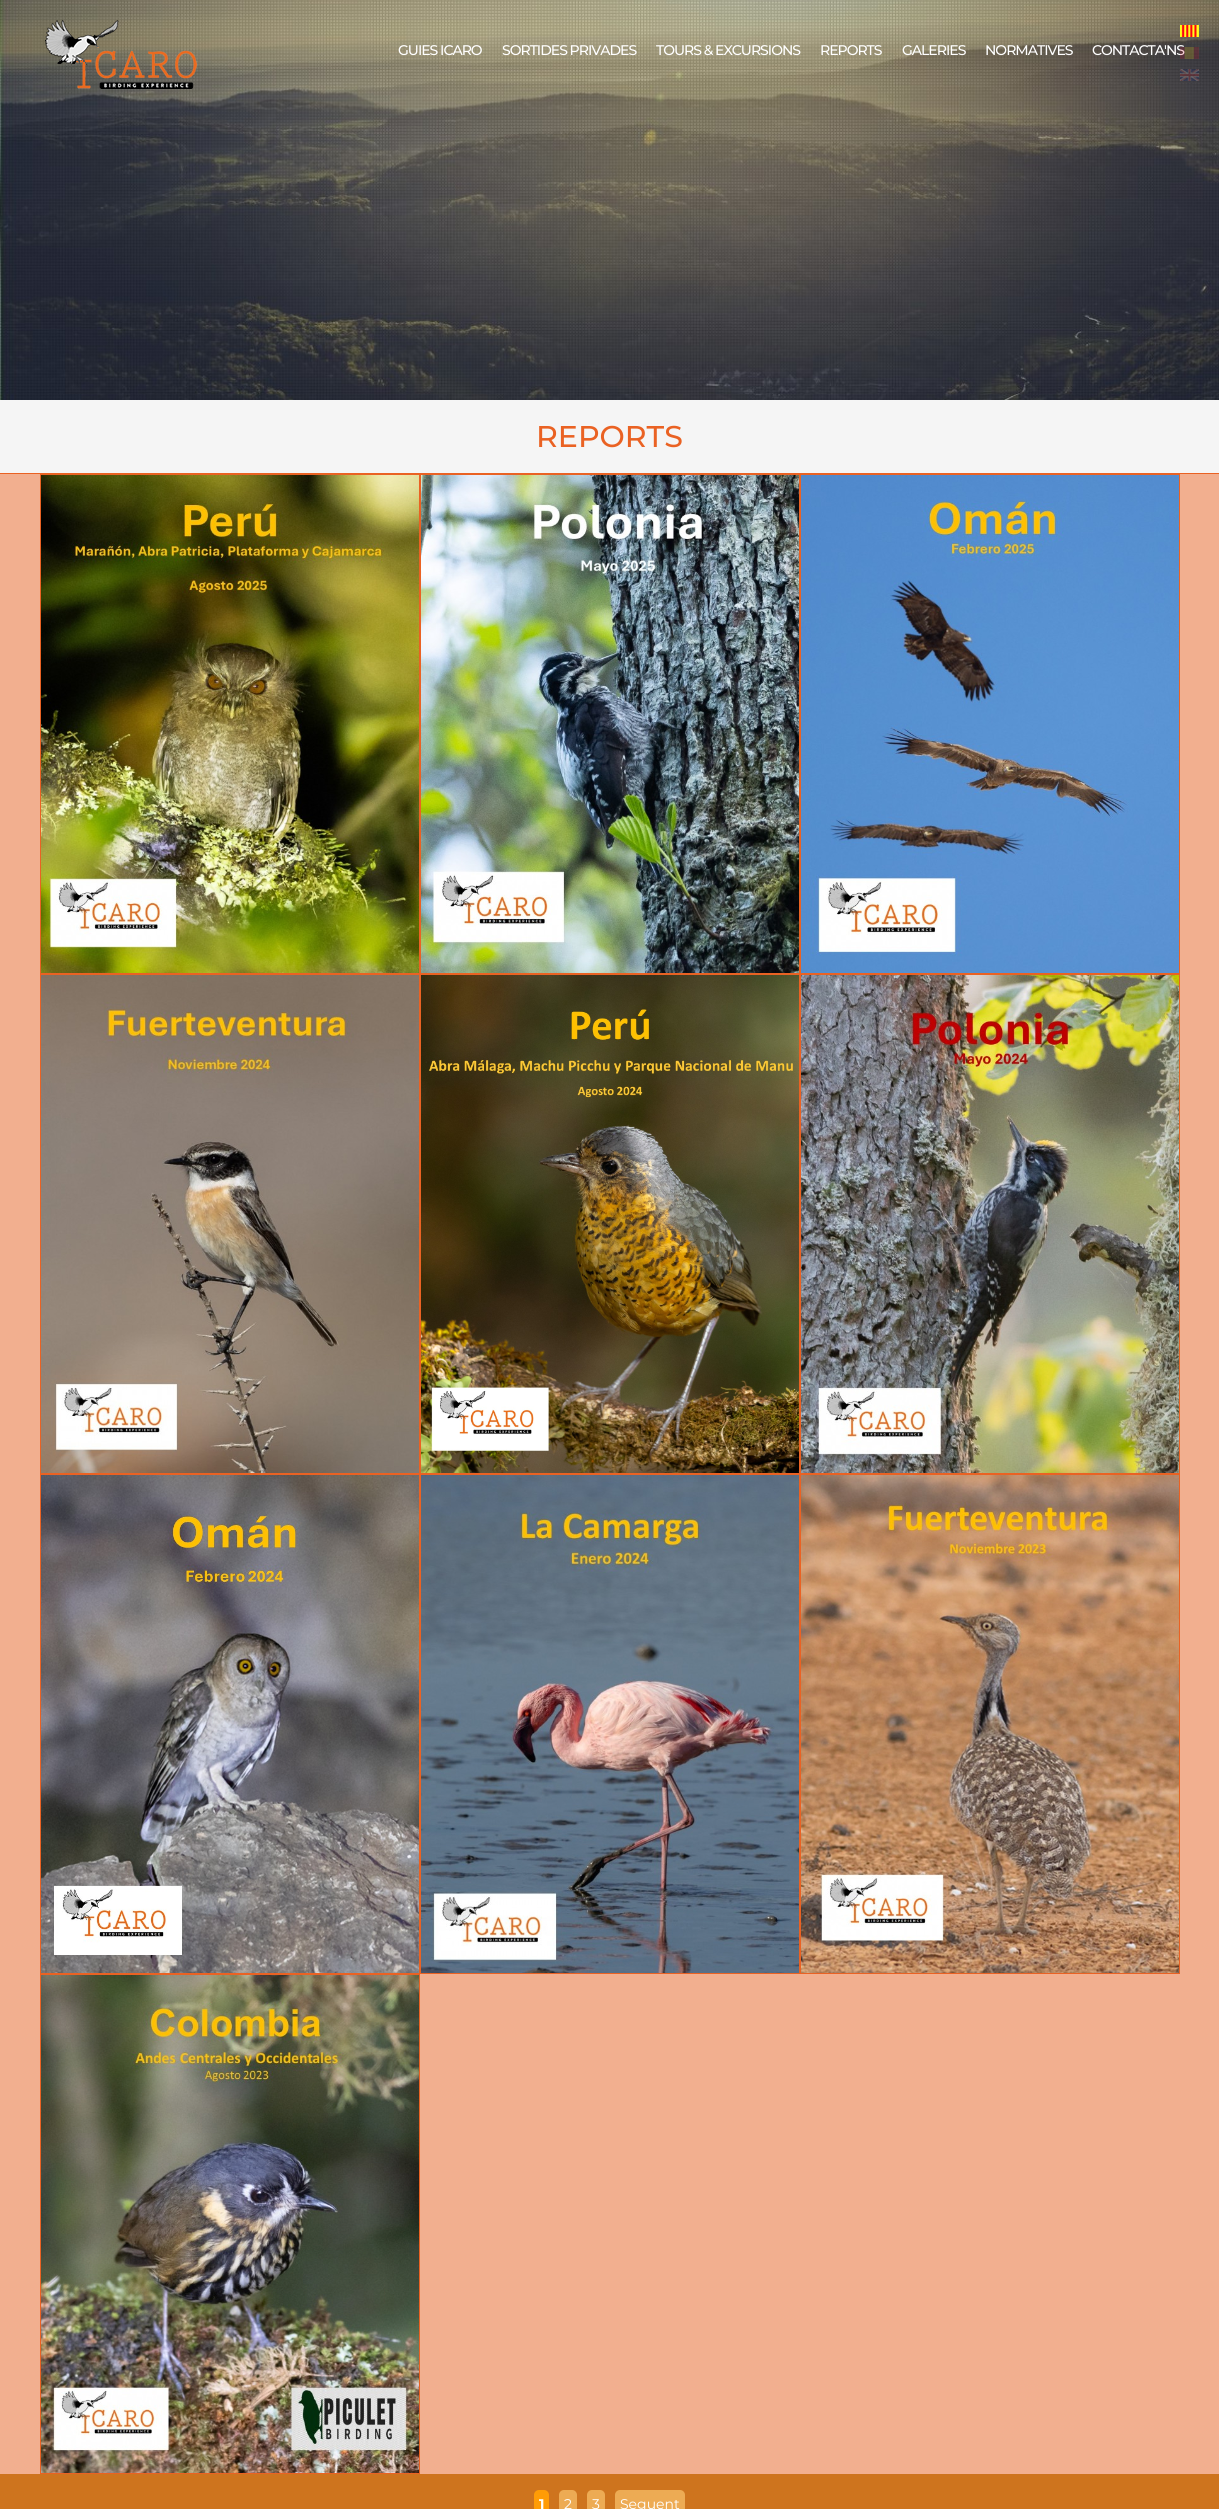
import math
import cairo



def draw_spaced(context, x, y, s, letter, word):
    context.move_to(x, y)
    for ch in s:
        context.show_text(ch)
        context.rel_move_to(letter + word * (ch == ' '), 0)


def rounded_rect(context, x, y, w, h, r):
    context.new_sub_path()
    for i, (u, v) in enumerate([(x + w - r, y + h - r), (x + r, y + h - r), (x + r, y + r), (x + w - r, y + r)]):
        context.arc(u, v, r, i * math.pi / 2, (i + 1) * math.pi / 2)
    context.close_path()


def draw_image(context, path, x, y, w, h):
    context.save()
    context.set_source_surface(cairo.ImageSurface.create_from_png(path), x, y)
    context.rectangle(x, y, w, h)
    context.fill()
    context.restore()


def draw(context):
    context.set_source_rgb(245 / 255, 245 / 255, 245 / 255)
    context.paint()
    draw_image(context, "images/1.png", 0, 0, 1219, 400)
    draw_image(context, "images/2.png", 45, 20, 152, 69)
    draw_image(context, "images/3.png", 1180, 25, 19, 12)
    draw_image(context, "images/5.png", 1180, 69, 19, 12)
    context.set_source_rgb(234 / 255, 98 / 255, 35 / 255)
    context.rectangle(0, 473, 1219, 1)
    context.fill()
    context.set_source_rgb(242 / 255, 175 / 255, 143 / 255)
    context.rectangle(0, 474, 1219, 2000)
    context.fill()
    draw_image(context, "images/6.png", 41, 475, 378, 498)
    context.rectangle(40.5, 474.5, 379, 499)
    context.set_source_rgb(234 / 255, 98 / 255, 35 / 255)
    context.set_line_width(1)
    context.stroke()
    draw_image(context, "images/7.png", 421, 475, 378, 498)
    context.rectangle(420.5, 474.5, 379, 499)
    context.stroke()
    draw_image(context, "images/8.png", 801, 475, 378, 498)
    context.rectangle(800.5, 474.5, 379, 499)
    context.stroke()
    draw_image(context, "images/9.png", 41, 975, 378, 498)
    context.rectangle(40.5, 974.5, 379, 499)
    context.stroke()
    draw_image(context, "images/10.png", 421, 975, 378, 498)
    context.rectangle(420.5, 974.5, 379, 499)
    context.stroke()
    draw_image(context, "images/11.png", 801, 975, 378, 498)
    context.rectangle(800.5, 974.5, 379, 499)
    context.stroke()
    draw_image(context, "images/12.png", 41, 1475, 378, 498)
    context.rectangle(40.5, 1474.5, 379, 499)
    context.stroke()
    draw_image(context, "images/13.png", 421, 1475, 378, 498)
    context.rectangle(420.5, 1474.5, 379, 499)
    context.stroke()
    draw_image(context, "images/14.png", 801, 1475, 378, 498)
    context.rectangle(800.5, 1474.5, 379, 499)
    context.stroke()
    draw_image(context, "images/15.png", 41, 1975, 378, 498)
    context.rectangle(40.5, 1974.5, 379, 499)
    context.stroke()
    context.set_source_rgb(206 / 255, 116 / 255, 30 / 255)
    context.rectangle(0, 2474, 1219, 35)
    context.fill()
    context.set_source_rgb(1, 156 / 255, 6 / 255)
    rounded_rect(context, 534, 2490, 15, 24, 5)
    context.fill()
    context.set_source_rgb(237 / 255, 171 / 255, 84 / 255)
    rounded_rect(context, 559, 2490, 18, 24, 5)
    context.fill()
    rounded_rect(context, 587, 2490, 18, 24, 5)
    context.fill()
    rounded_rect(context, 615, 2490, 70, 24, 5)
    context.fill()
    context.select_font_face("Montserrat Medium")
    context.set_font_size(14)
    context.set_source_rgb(1, 1, 1)
    draw_spaced(context, 398, 55, "GUIES ICARO", -1, 0)
    draw_spaced(context, 502, 55, "SORTIDES PRIVADES", -1, 0)
    draw_spaced(context, 656, 55, "TOURS & EXCURSIONS", -1, 0)
    draw_spaced(context, 820, 55, "REPORTS", -1, 0)
    draw_spaced(context, 902, 55, "GALERIES", -1, 0)
    draw_spaced(context, 985, 55, "NORMATIVES", -1, 0)
    draw_spaced(context, 1092, 55, "CONTACTA'NS", -1, 0)
    draw_image(context, "images/4.png", 1180, 47, 19, 12)
    context.set_font_size(30)
    context.set_source_rgb(234 / 255, 98 / 255, 35 / 255)
    context.move_to(536, 447)
    context.show_text("REPORTS")
    context.select_font_face("Montserrat", cairo.FontSlant.NORMAL, cairo.FontWeight.BOLD)
    context.set_font_size(14)
    context.set_source_rgb(1, 1, 1)
    context.move_to(539, 2509)
    context.show_text("1")
    context.select_font_face("Montserrat")
    context.move_to(564, 2509)
    context.show_text("2")
    context.move_to(592, 2509)
    context.show_text("3")
    context.move_to(620, 2509)
    context.show_text("Seguent")


surface = cairo.ImageSurface(cairo.Format.RGB24, 1219, 2509)
context = cairo.Context(surface)
options = cairo.FontOptions()
options.set_hint_metrics(cairo.HintMetrics.OFF)
options.set_hint_style(cairo.HintStyle.NONE)
context.set_font_options(options)
context.set_miter_limit(4)
draw(context)
surface.write_to_png("out.png")
